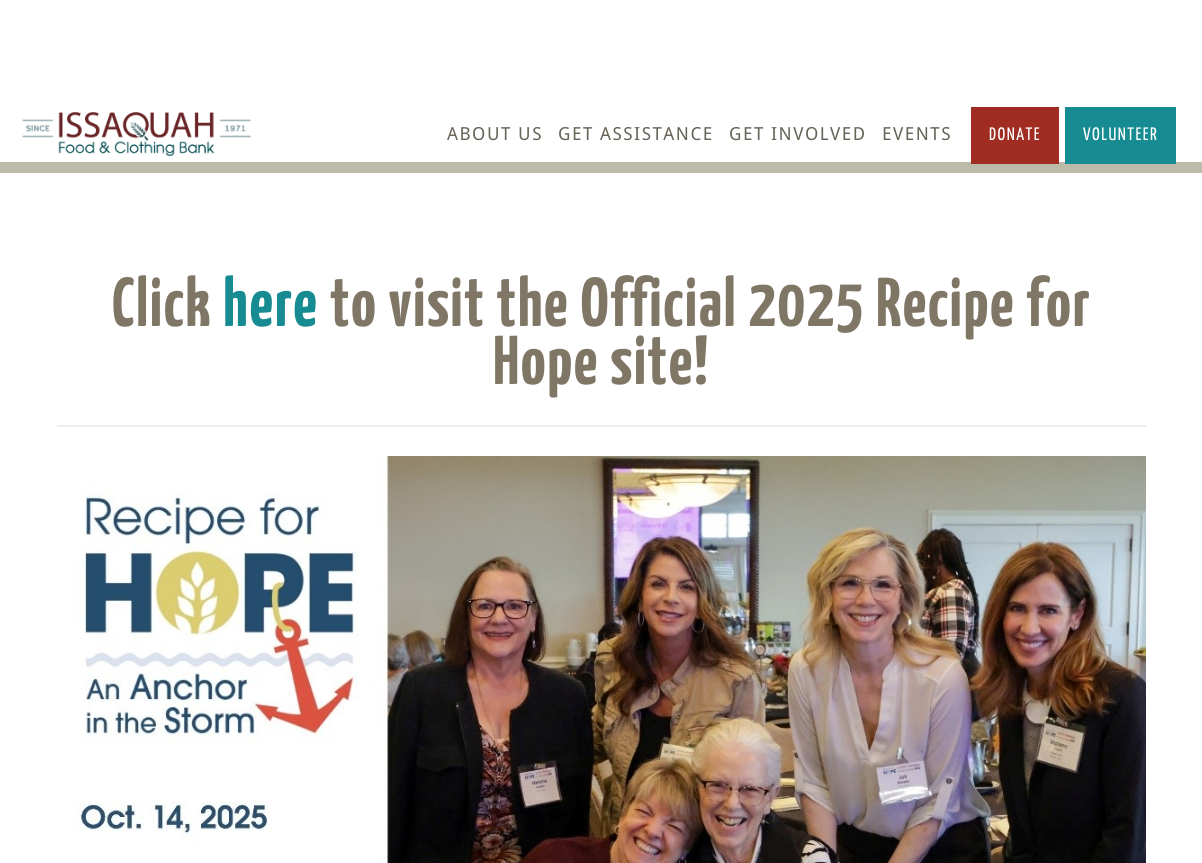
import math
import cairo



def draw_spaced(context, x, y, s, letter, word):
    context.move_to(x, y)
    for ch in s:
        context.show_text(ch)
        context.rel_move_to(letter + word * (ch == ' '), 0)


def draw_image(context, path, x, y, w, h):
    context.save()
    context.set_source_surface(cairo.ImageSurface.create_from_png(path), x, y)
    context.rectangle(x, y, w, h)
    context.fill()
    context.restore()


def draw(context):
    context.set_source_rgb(1, 1, 1)
    context.paint()
    context.set_source_rgb(188 / 255, 187 / 255, 170 / 255)
    context.rectangle(0, 162, 1202, 11)
    context.fill()
    draw_image(context, "images/1.png", 22, 112, 229, 44)
    context.set_source_rgb(160 / 255, 44 / 255, 34 / 255)
    context.rectangle(971, 107, 88, 57)
    context.fill()
    context.set_source_rgb(22 / 255, 139 / 255, 145 / 255)
    context.rectangle(1065, 107, 111, 57)
    context.fill()
    context.set_source_rgb(238 / 255, 238 / 255, 238 / 255)
    context.rectangle(57, 425, 1089, 2)
    context.fill()
    draw_image(context, "images/2.png", 72, 456, 1074, 407)
    context.select_font_face("Droid Sans")
    context.set_font_size(18)
    context.set_source_rgb(103 / 255, 100 / 255, 88 / 255)
    draw_spaced(context, 447, 140, "ABOUT US", 1.5, 0)
    draw_spaced(context, 558, 140, "GET ASSISTANCE", 1.5, 0)
    draw_spaced(context, 729, 140, "GET INVOLVED", 1.5, 0)
    draw_spaced(context, 882, 140, "EVENTS", 1.5, 0)
    context.select_font_face("Yanone Kaffeesatz")
    context.set_source_rgb(1, 1, 1)
    draw_spaced(context, 989, 140, "DONATE", 1.5, 0)
    draw_spaced(context, 1083, 140, "VOLUNTEER", 1.5, 0)
    context.select_font_face("Yanone Kaffeesatz", cairo.FontSlant.NORMAL, cairo.FontWeight.BOLD)
    context.set_font_size(69)
    context.set_source_rgb(127 / 255, 118 / 255, 101 / 255)
    draw_spaced(context, 112, 326, "Click", 1.5, 0)
    context.set_source_rgb(22 / 255, 139 / 255, 145 / 255)
    draw_spaced(context, 223, 326, "here", 1.5, 0)
    context.set_source_rgb(127 / 255, 118 / 255, 101 / 255)
    draw_spaced(context, 330, 326, "to visit the Official 2025 Recipe for", 1.5, 0)
    draw_spaced(context, 493, 384, "Hope site!", 1.5, 0)


surface = cairo.ImageSurface(cairo.Format.RGB24, 1202, 863)
context = cairo.Context(surface)
options = cairo.FontOptions()
options.set_hint_metrics(cairo.HintMetrics.OFF)
options.set_hint_style(cairo.HintStyle.NONE)
context.set_font_options(options)
context.set_miter_limit(4)
draw(context)
surface.write_to_png("out.png")
